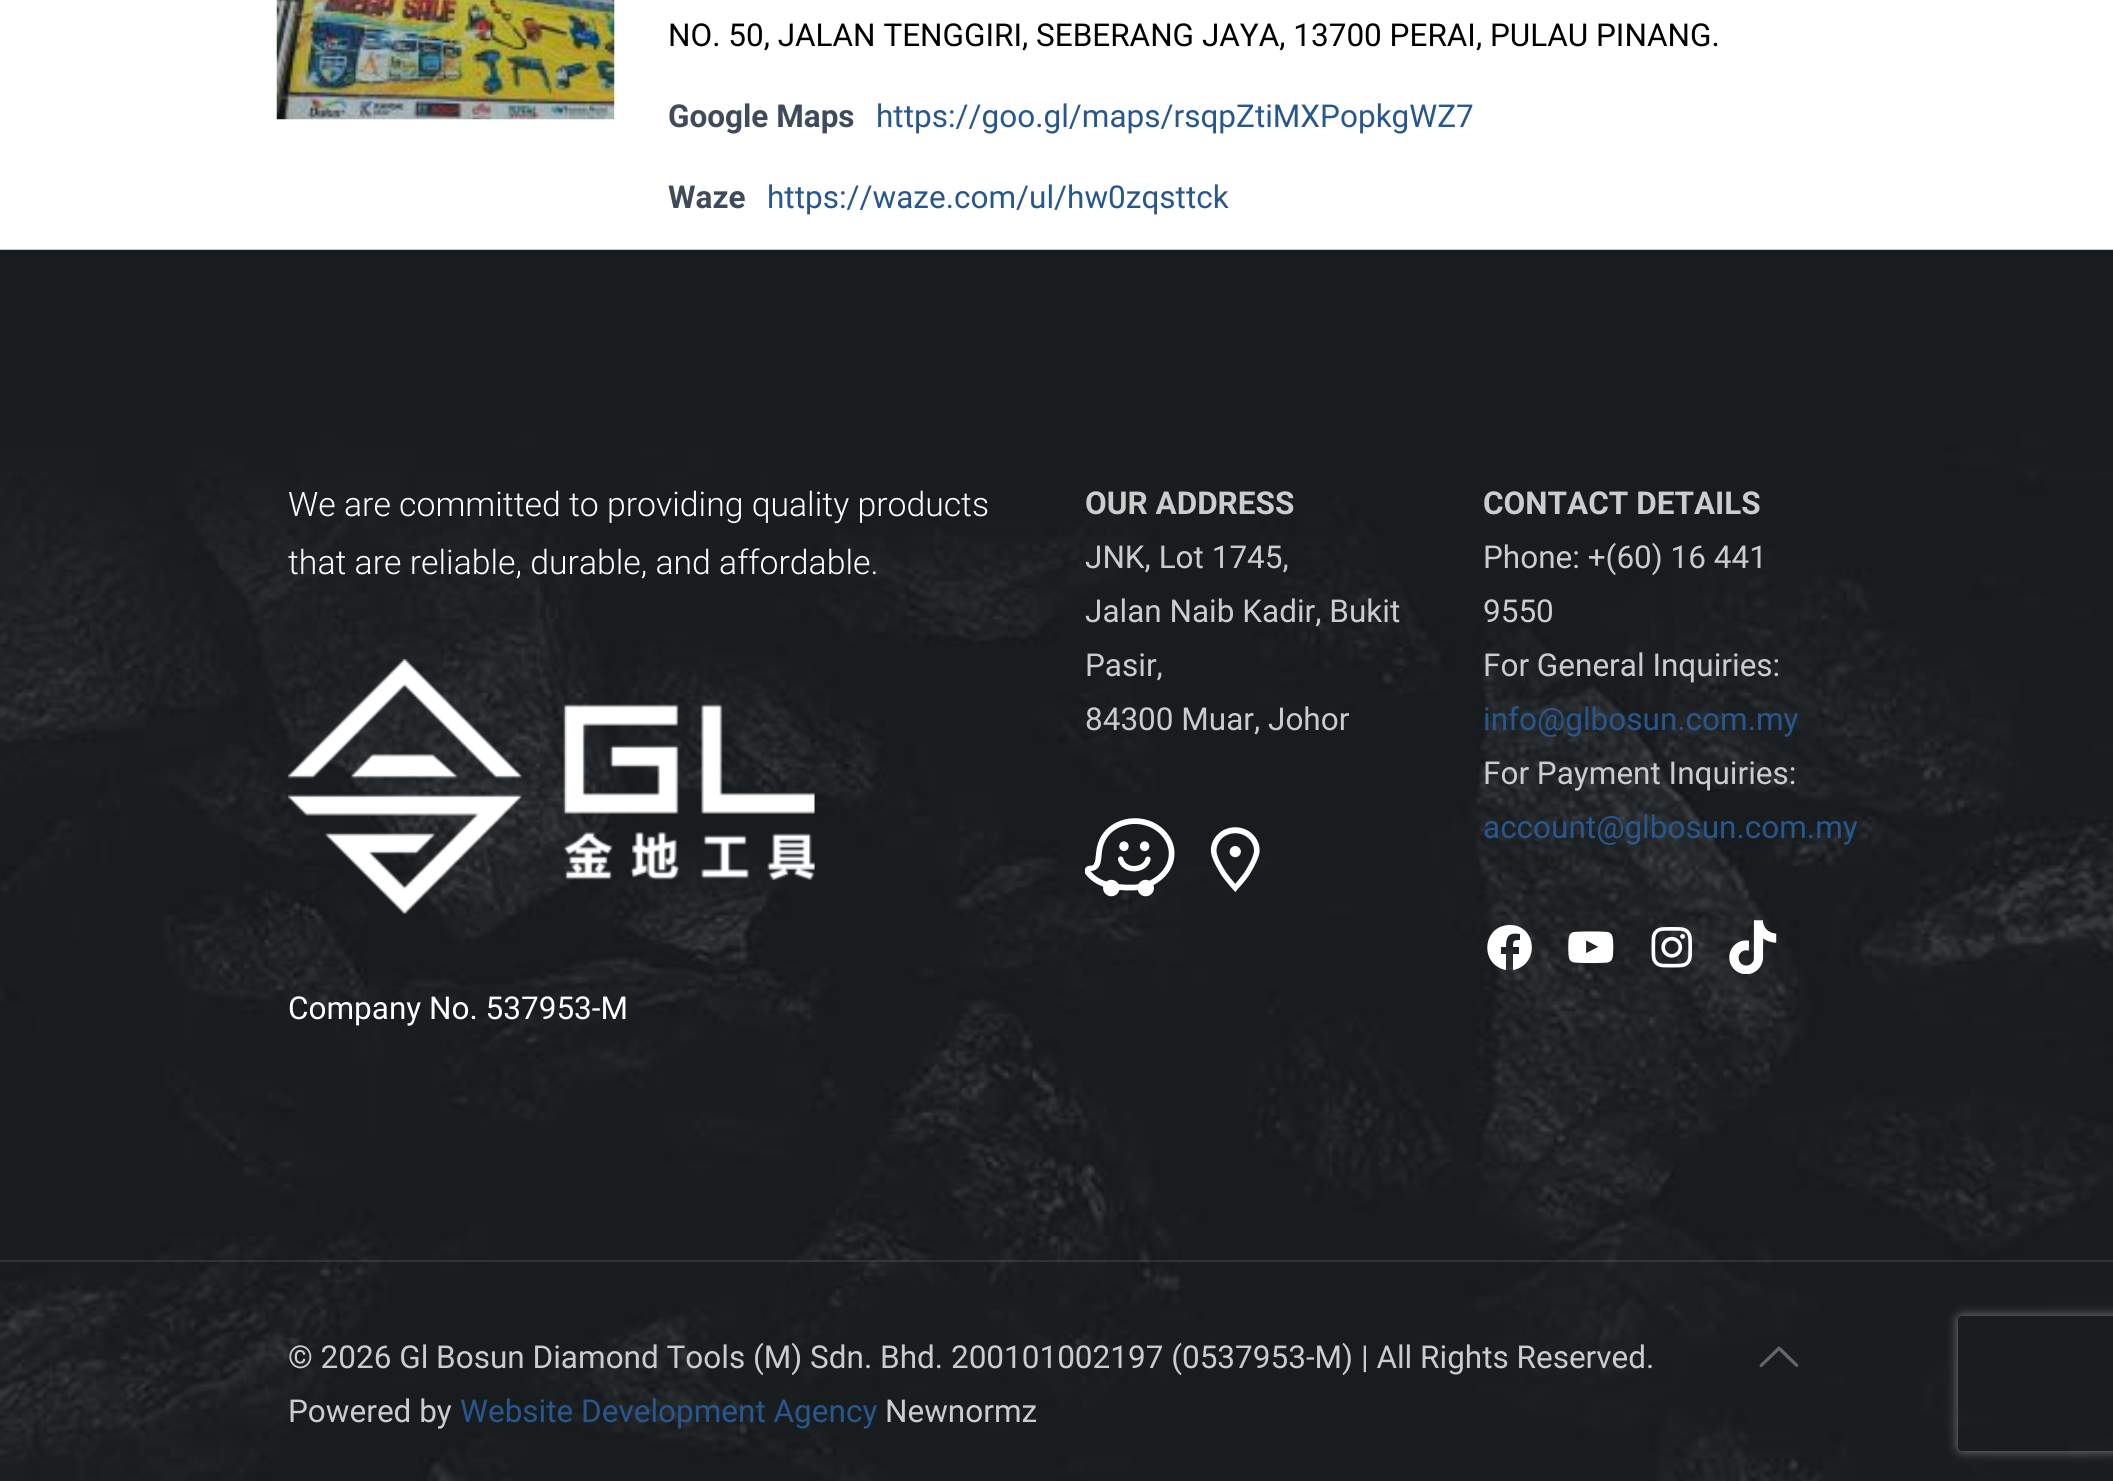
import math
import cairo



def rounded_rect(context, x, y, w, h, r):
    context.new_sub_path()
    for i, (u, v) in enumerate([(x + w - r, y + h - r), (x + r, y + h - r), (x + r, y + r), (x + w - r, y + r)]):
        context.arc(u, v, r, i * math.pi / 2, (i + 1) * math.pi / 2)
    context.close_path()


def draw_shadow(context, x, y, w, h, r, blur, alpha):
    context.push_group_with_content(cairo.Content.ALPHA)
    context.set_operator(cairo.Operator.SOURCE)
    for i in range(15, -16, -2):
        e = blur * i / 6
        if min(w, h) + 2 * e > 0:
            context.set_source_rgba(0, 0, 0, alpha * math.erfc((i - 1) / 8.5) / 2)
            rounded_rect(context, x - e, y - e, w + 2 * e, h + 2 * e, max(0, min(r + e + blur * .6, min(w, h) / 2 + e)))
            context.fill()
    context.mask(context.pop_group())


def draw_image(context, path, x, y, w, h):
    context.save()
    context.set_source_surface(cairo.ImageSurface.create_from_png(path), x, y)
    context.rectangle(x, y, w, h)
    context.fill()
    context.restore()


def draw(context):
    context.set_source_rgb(1, 1, 1)
    context.paint()
    draw_image(context, "images/1.png", 276, 0, 339, 120)
    draw_image(context, "images/2.png", 0, 249, 2113, 1232)
    draw_image(context, "images/3.png", 288, 659, 527, 255)
    draw_image(context, "images/4.png", 1085, 818, 90, 79)
    draw_image(context, "images/5.png", 1210, 827, 50, 65)
    context.set_source_rgb(1, 1, 1)
    context.new_path()
    context.move_to(1510, 925)
    context.curve_to(1482, 925, 1479, 965, 1506, 970)
    context.line_to(1506, 954)
    context.line_to(1501, 954)
    context.line_to(1501, 947)
    context.line_to(1506, 947)
    context.curve_to(1506, 937, 1508, 932, 1520, 934)
    context.line_to(1520, 940)
    context.curve_to(1513, 940, 1513, 941, 1513, 947)
    context.line_to(1519, 947)
    context.line_to(1519, 954)
    context.line_to(1513, 954)
    context.line_to(1513, 970)
    context.curve_to(1540, 965, 1537, 925, 1510, 925)
    context.close_path()
    context.fill()
    draw_image(context, "images/6.png", 1568, 931, 46, 33)
    draw_image(context, "images/7.png", 1651, 927, 41, 41)
    draw_image(context, "images/8.png", 1729, 920, 48, 54)
    context.set_source_rgba(1, 1, 1, 0.1)
    context.rectangle(0, 1260, 2113, 2)
    context.fill()
    context.set_source_rgb(101 / 255, 102 / 255, 108 / 255)
    context.new_path()
    context.move_to(1795.5, 1366.5)
    context.line_to(1779, 1350.5)
    context.line_to(1765, 1364)
    context.curve_to(1764, 1365, 1761, 1369, 1759.5, 1366)
    context.line_to(1760, 1364.5)
    context.line_to(1778.5, 1346.5)
    context.curve_to(1780, 1346, 1785, 1352, 1786, 1352.5)
    context.line_to(1795, 1361.5)
    context.curve_to(1795, 1361.5, 1801, 1366, 1797, 1367)
    context.close_path()
    context.fill()
    context.save()
    context.set_fill_rule(cairo.FillRule.EVEN_ODD)
    context.new_path()
    context.move_to(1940, 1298)
    context.line_to(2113, 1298)
    context.line_to(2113, 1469)
    context.line_to(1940, 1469)
    context.close_path()
    context.move_to(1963, 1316)
    context.line_to(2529, 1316)
    context.curve_to(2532, 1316, 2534, 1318, 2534, 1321)
    context.line_to(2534, 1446)
    context.curve_to(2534, 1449, 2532, 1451, 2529, 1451)
    context.line_to(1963, 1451)
    context.curve_to(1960, 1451, 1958, 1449, 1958, 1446)
    context.line_to(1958, 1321)
    context.curve_to(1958, 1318, 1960, 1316, 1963, 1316)
    context.close_path()
    context.clip()
    context.set_source_rgb(128 / 255, 128 / 255, 128 / 255)
    draw_shadow(context, 1958, 1316, 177, 135, 5, 5.5, 1)
    context.restore()
    context.select_font_face("Roboto")
    context.set_font_size(31.5)
    context.set_source_rgb(0, 0, 0)
    context.move_to(668, 46)
    context.show_text("NO. 50, JALAN TENGGIRI, SEBERANG JAYA, 13700 PERAI, PULAU PINANG.")
    context.select_font_face("Roboto", cairo.FontSlant.NORMAL, cairo.FontWeight.BOLD)
    context.set_source_rgb(63 / 255, 75 / 255, 91 / 255)
    context.move_to(668, 127)
    context.show_text("Google Maps")
    context.select_font_face("Roboto")
    context.set_source_rgb(39 / 255, 87 / 255, 140 / 255)
    context.move_to(876, 127)
    context.show_text("https://goo.gl/maps/rsqpZtiMXPopkgWZ7")
    context.select_font_face("Roboto", cairo.FontSlant.NORMAL, cairo.FontWeight.BOLD)
    context.set_source_rgb(63 / 255, 75 / 255, 91 / 255)
    context.move_to(668, 208)
    context.show_text("Waze")
    context.select_font_face("Roboto")
    context.set_source_rgb(39 / 255, 87 / 255, 140 / 255)
    context.move_to(767, 208)
    context.show_text("https://waze.com/ul/hw0zqsttck")
    context.select_font_face("Roboto Light")
    context.set_font_size(33.75)
    context.set_source_rgb(1, 1, 1)
    context.move_to(288, 516)
    context.show_text("We are committed to providing quality products")
    context.move_to(288, 574)
    context.show_text("that are reliable, durable, and affordable.")
    context.select_font_face("Roboto")
    context.set_font_size(31.5)
    context.move_to(288, 1019)
    context.show_text("Company No. 537953-M")
    context.select_font_face("Roboto", cairo.FontSlant.NORMAL, cairo.FontWeight.BOLD)
    context.set_source_rgb(204 / 255, 204 / 255, 204 / 255)
    context.move_to(1085, 514)
    context.show_text("OUR ADDRESS")
    context.select_font_face("Roboto")
    context.move_to(1085, 568)
    context.show_text("JNK, Lot 1745,")
    context.move_to(1085, 622)
    context.show_text("Jalan Naib Kadir, Bukit")
    context.move_to(1085, 676)
    context.show_text("Pasir,")
    context.move_to(1085, 730)
    context.show_text("84300 Muar, Johor")
    context.select_font_face("Roboto", cairo.FontSlant.NORMAL, cairo.FontWeight.BOLD)
    context.move_to(1483, 514)
    context.show_text("CONTACT DETAILS")
    context.select_font_face("Roboto")
    context.move_to(1483, 568)
    context.show_text("Phone: +(60) 16 441")
    context.move_to(1483, 622)
    context.show_text("9550")
    context.move_to(1483, 676)
    context.show_text("For General Inquiries:")
    context.set_source_rgb(39 / 255, 87 / 255, 140 / 255)
    context.move_to(1483, 730)
    context.show_text("info@glbosun.com.my")
    context.set_source_rgb(204 / 255, 204 / 255, 204 / 255)
    context.move_to(1483, 784)
    context.show_text("For Payment Inquiries:")
    context.set_source_rgb(39 / 255, 87 / 255, 140 / 255)
    context.move_to(1483, 838)
    context.show_text("account@glbosun.com.my")
    context.set_source_rgb(204 / 255, 204 / 255, 204 / 255)
    context.move_to(288, 1368)
    context.show_text("© 2026 Gl Bosun Diamond Tools (M) Sdn. Bhd. 200101002197 (0537953-M) | All Rights Reserved.")
    context.move_to(288, 1422)
    context.show_text("Powered by")
    context.set_source_rgb(39 / 255, 87 / 255, 140 / 255)
    context.move_to(460, 1422)
    context.show_text("Website Development Agency")
    context.set_source_rgb(204 / 255, 204 / 255, 204 / 255)
    context.move_to(885, 1422)
    context.show_text("Newnormz")


surface = cairo.ImageSurface(cairo.Format.RGB24, 2113, 1481)
context = cairo.Context(surface)
options = cairo.FontOptions()
options.set_hint_metrics(cairo.HintMetrics.OFF)
options.set_hint_style(cairo.HintStyle.NONE)
context.set_font_options(options)
context.set_miter_limit(4)
draw(context)
surface.write_to_png("out.png")
